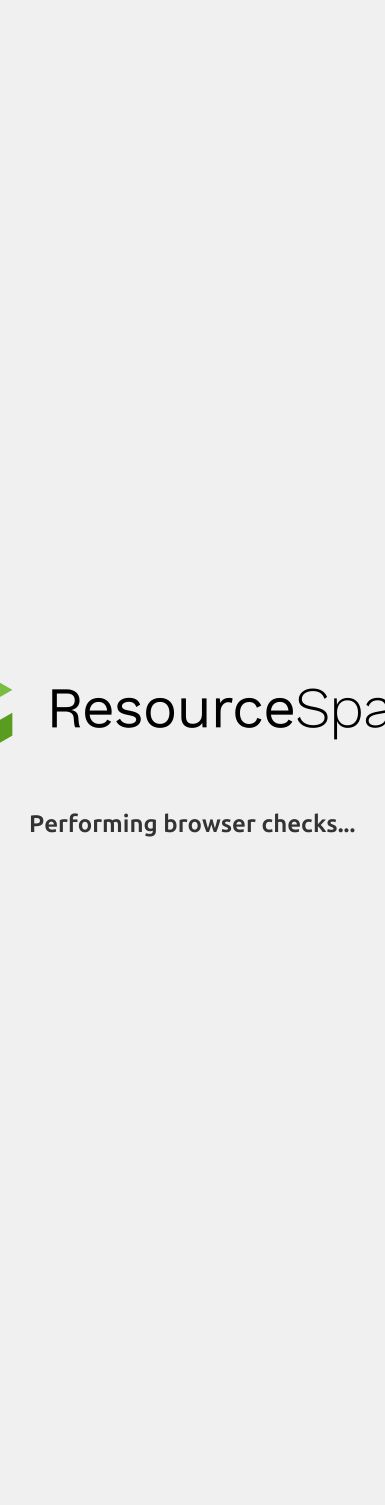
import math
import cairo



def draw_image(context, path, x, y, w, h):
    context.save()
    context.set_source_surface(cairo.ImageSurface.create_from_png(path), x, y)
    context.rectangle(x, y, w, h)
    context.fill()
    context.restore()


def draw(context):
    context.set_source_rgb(240 / 255, 240 / 255, 240 / 255)
    context.paint()
    draw_image(context, "images/1.png", 0, 682, 385, 61)
    context.select_font_face("Ubuntu", cairo.FontSlant.NORMAL, cairo.FontWeight.BOLD)
    context.set_font_size(24)
    context.set_source_rgb(51 / 255, 51 / 255, 51 / 255)
    context.move_to(29, 832)
    context.show_text("Performing browser checks...")


surface = cairo.ImageSurface(cairo.Format.RGB24, 385, 1505)
context = cairo.Context(surface)
options = cairo.FontOptions()
options.set_hint_metrics(cairo.HintMetrics.OFF)
options.set_hint_style(cairo.HintStyle.NONE)
context.set_font_options(options)
context.set_miter_limit(4)
draw(context)
surface.write_to_png("out.png")
